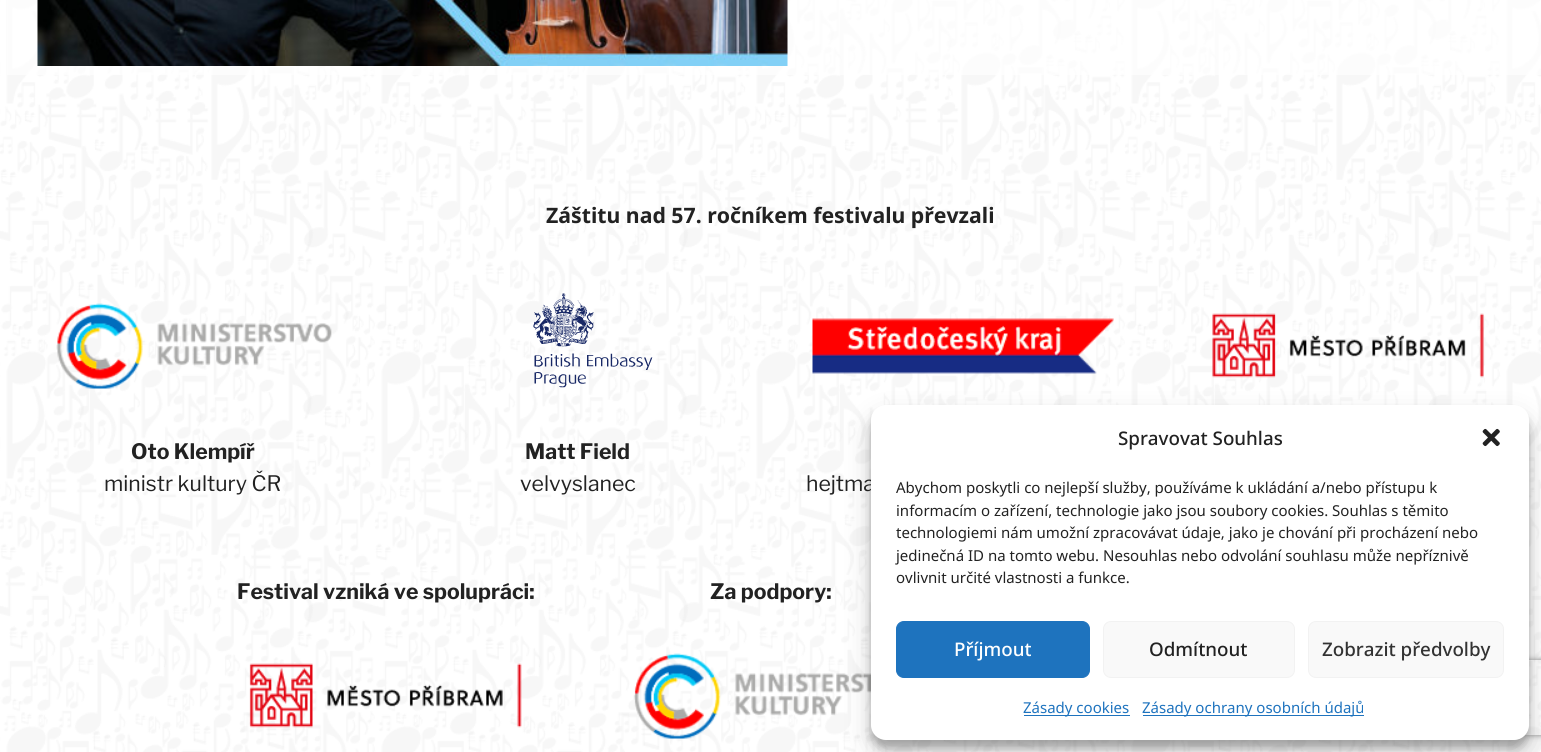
import math
import cairo



def rounded_rect(context, x, y, w, h, r):
    context.new_sub_path()
    for i, (u, v) in enumerate([(x + w - r, y + h - r), (x + r, y + h - r), (x + r, y + r), (x + w - r, y + r)]):
        context.arc(u, v, r, i * math.pi / 2, (i + 1) * math.pi / 2)
    context.close_path()


def draw_shadow(context, x, y, w, h, r, blur, alpha):
    context.push_group_with_content(cairo.Content.ALPHA)
    context.set_operator(cairo.Operator.SOURCE)
    for i in range(15, -16, -2):
        e = blur * i / 6
        if min(w, h) + 2 * e > 0:
            context.set_source_rgba(0, 0, 0, alpha * math.erfc((i - 1) / 8.5) / 2)
            rounded_rect(context, x - e, y - e, w + 2 * e, h + 2 * e, max(0, min(r + e + blur * .6, min(w, h) / 2 + e)))
            context.fill()
    context.mask(context.pop_group())


def draw_image(context, path, x, y, w, h):
    context.save()
    context.set_source_surface(cairo.ImageSurface.create_from_png(path), x, y)
    context.rectangle(x, y, w, h)
    context.fill()
    context.restore()


def draw(context):
    context.set_source_rgb(1, 1, 1)
    context.paint()
    draw_image(context, "images/1.png", 0, 0, 1541, 752)
    context.set_source_rgba(1, 1, 1, 0.66)
    context.rectangle(7, 0, 1534, 75)
    context.fill()
    draw_image(context, "images/2.png", 37, 0, 751, 66)
    draw_image(context, "images/3.png", 1212, 313, 272, 65)
    draw_image(context, "images/4.png", 56, 303, 276, 86)
    draw_image(context, "images/5.png", 533, 293, 120, 95)
    draw_image(context, "images/6.png", 812, 318, 302, 56)
    draw_image(context, "images/7.png", 249, 663, 273, 65)
    draw_image(context, "images/8.png", 633, 653, 238, 86)
    context.set_source_rgb(0, 0, 0)
    draw_shadow(context, 871, 413, 658, 335, 15, 4, 0.23)
    draw_shadow(context, 871, 418, 658, 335, 15, 12.5, 0.19)
    context.save()
    context.set_fill_rule(cairo.FillRule.EVEN_ODD)
    context.new_path()
    context.move_to(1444, 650)
    context.line_to(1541, 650)
    context.line_to(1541, 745)
    context.line_to(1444, 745)
    context.close_path()
    context.move_to(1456.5, 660)
    context.line_to(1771.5, 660)
    context.curve_to(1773, 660, 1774, 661, 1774, 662.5)
    context.line_to(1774, 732.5)
    context.curve_to(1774, 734, 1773, 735, 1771.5, 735)
    context.line_to(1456.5, 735)
    context.curve_to(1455, 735, 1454, 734, 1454, 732.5)
    context.line_to(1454, 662.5)
    context.curve_to(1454, 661, 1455, 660, 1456.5, 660)
    context.close_path()
    context.clip()
    context.set_source_rgb(128 / 255, 128 / 255, 128 / 255)
    draw_shadow(context, 1454, 660, 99, 75, 2.5, 3, 1)
    context.restore()
    context.select_font_face("Noto Sans", cairo.FontSlant.NORMAL, cairo.FontWeight.BOLD)
    context.set_font_size(21.25)
    context.set_source_rgb(34 / 255, 34 / 255, 34 / 255)
    context.move_to(546, 223)
    context.show_text("Záštitu nad 57. ročníkem festivalu převzali")
    context.select_font_face("Libre Franklin", cairo.FontSlant.NORMAL, cairo.FontWeight.BOLD)
    context.move_to(131, 459)
    context.show_text("Oto Klempíř")
    context.select_font_face("Libre Franklin")
    context.move_to(104, 491)
    context.show_text("ministr kultury ČR")
    context.select_font_face("Libre Franklin", cairo.FontSlant.NORMAL, cairo.FontWeight.BOLD)
    context.move_to(525, 459)
    context.show_text("Matt Field")
    context.select_font_face("Libre Franklin")
    context.move_to(520, 491)
    context.show_text("velvyslanec")
    context.move_to(806, 491)
    context.show_text("hejtma")
    context.select_font_face("Libre Franklin", cairo.FontSlant.NORMAL, cairo.FontWeight.BOLD)
    context.move_to(237, 599)
    context.show_text("Festival vzniká ve spolupráci:")
    context.move_to(710, 599)
    context.show_text("Za podpory:")
    context.set_source_rgb(1, 1, 1)
    rounded_rect(context, 871, 405, 658, 335, 15)
    context.fill()
    context.select_font_face("Noto Sans Medium")
    context.set_font_size(18.75)
    context.set_source_rgb(34 / 255, 34 / 255, 34 / 255)
    context.move_to(1118, 445)
    context.show_text("Spravovat Souhlas")
    draw_image(context, "images/9.png", 1482, 428, 18, 19)
    context.select_font_face("Noto Sans")
    context.set_font_size(15)
    context.move_to(896, 493)
    context.show_text("Abychom poskytli co nejlepší služby, používáme k ukládání a/nebo přístupu k")
    context.move_to(896, 516)
    context.show_text("informacím o zařízení, technologie jako jsou soubory cookies. Souhlas s těmito")
    context.move_to(896, 538)
    context.show_text("technologiemi nám umožní zpracovávat údaje, jako je chování při procházení nebo")
    context.move_to(896, 561)
    context.show_text("jedinečná ID na tomto webu. Nesouhlas nebo odvolání souhlasu může nepříznivě")
    context.move_to(896, 583)
    context.show_text("ovlivnit určité vlastnosti a funkce.")
    context.set_source_rgb(30 / 255, 115 / 255, 190 / 255)
    rounded_rect(context, 896.5, 621.5, 193, 56, 7.5)
    context.fill_preserve()
    context.set_line_width(1)
    context.stroke()
    context.select_font_face("Noto Sans Medium")
    context.set_font_size(18.75)
    context.set_source_rgb(1, 1, 1)
    context.move_to(954, 656)
    context.show_text("Příjmout")
    context.set_source_rgb(249 / 255, 249 / 255, 249 / 255)
    rounded_rect(context, 1103.5, 621.5, 191, 56, 7.5)
    context.fill_preserve()
    context.set_source_rgb(242 / 255, 242 / 255, 242 / 255)
    context.stroke()
    context.set_source_rgb(34 / 255, 34 / 255, 34 / 255)
    context.move_to(1149, 656)
    context.show_text("Odmítnout")
    context.set_source_rgb(249 / 255, 249 / 255, 249 / 255)
    rounded_rect(context, 1308.5, 621.5, 195, 56, 7.5)
    context.fill_preserve()
    context.set_source_rgb(242 / 255, 242 / 255, 242 / 255)
    context.stroke()
    context.set_source_rgb(51 / 255, 51 / 255, 51 / 255)
    context.move_to(1322, 656)
    context.show_text("Zobrazit předvolby")
    context.set_source_rgb(30 / 255, 115 / 255, 190 / 255)
    context.rectangle(1024, 715, 106, 1)
    context.fill()
    context.select_font_face("Noto Sans")
    context.set_font_size(15)
    context.move_to(1023, 713)
    context.show_text("Zásady cookies")
    context.rectangle(1143, 715, 221, 1)
    context.fill()
    context.move_to(1142, 713)
    context.show_text("Zásady ochrany osobních údajů")


surface = cairo.ImageSurface(cairo.Format.RGB24, 1541, 752)
context = cairo.Context(surface)
options = cairo.FontOptions()
options.set_hint_metrics(cairo.HintMetrics.OFF)
options.set_hint_style(cairo.HintStyle.NONE)
context.set_font_options(options)
context.set_miter_limit(4)
draw(context)
surface.write_to_png("out.png")
